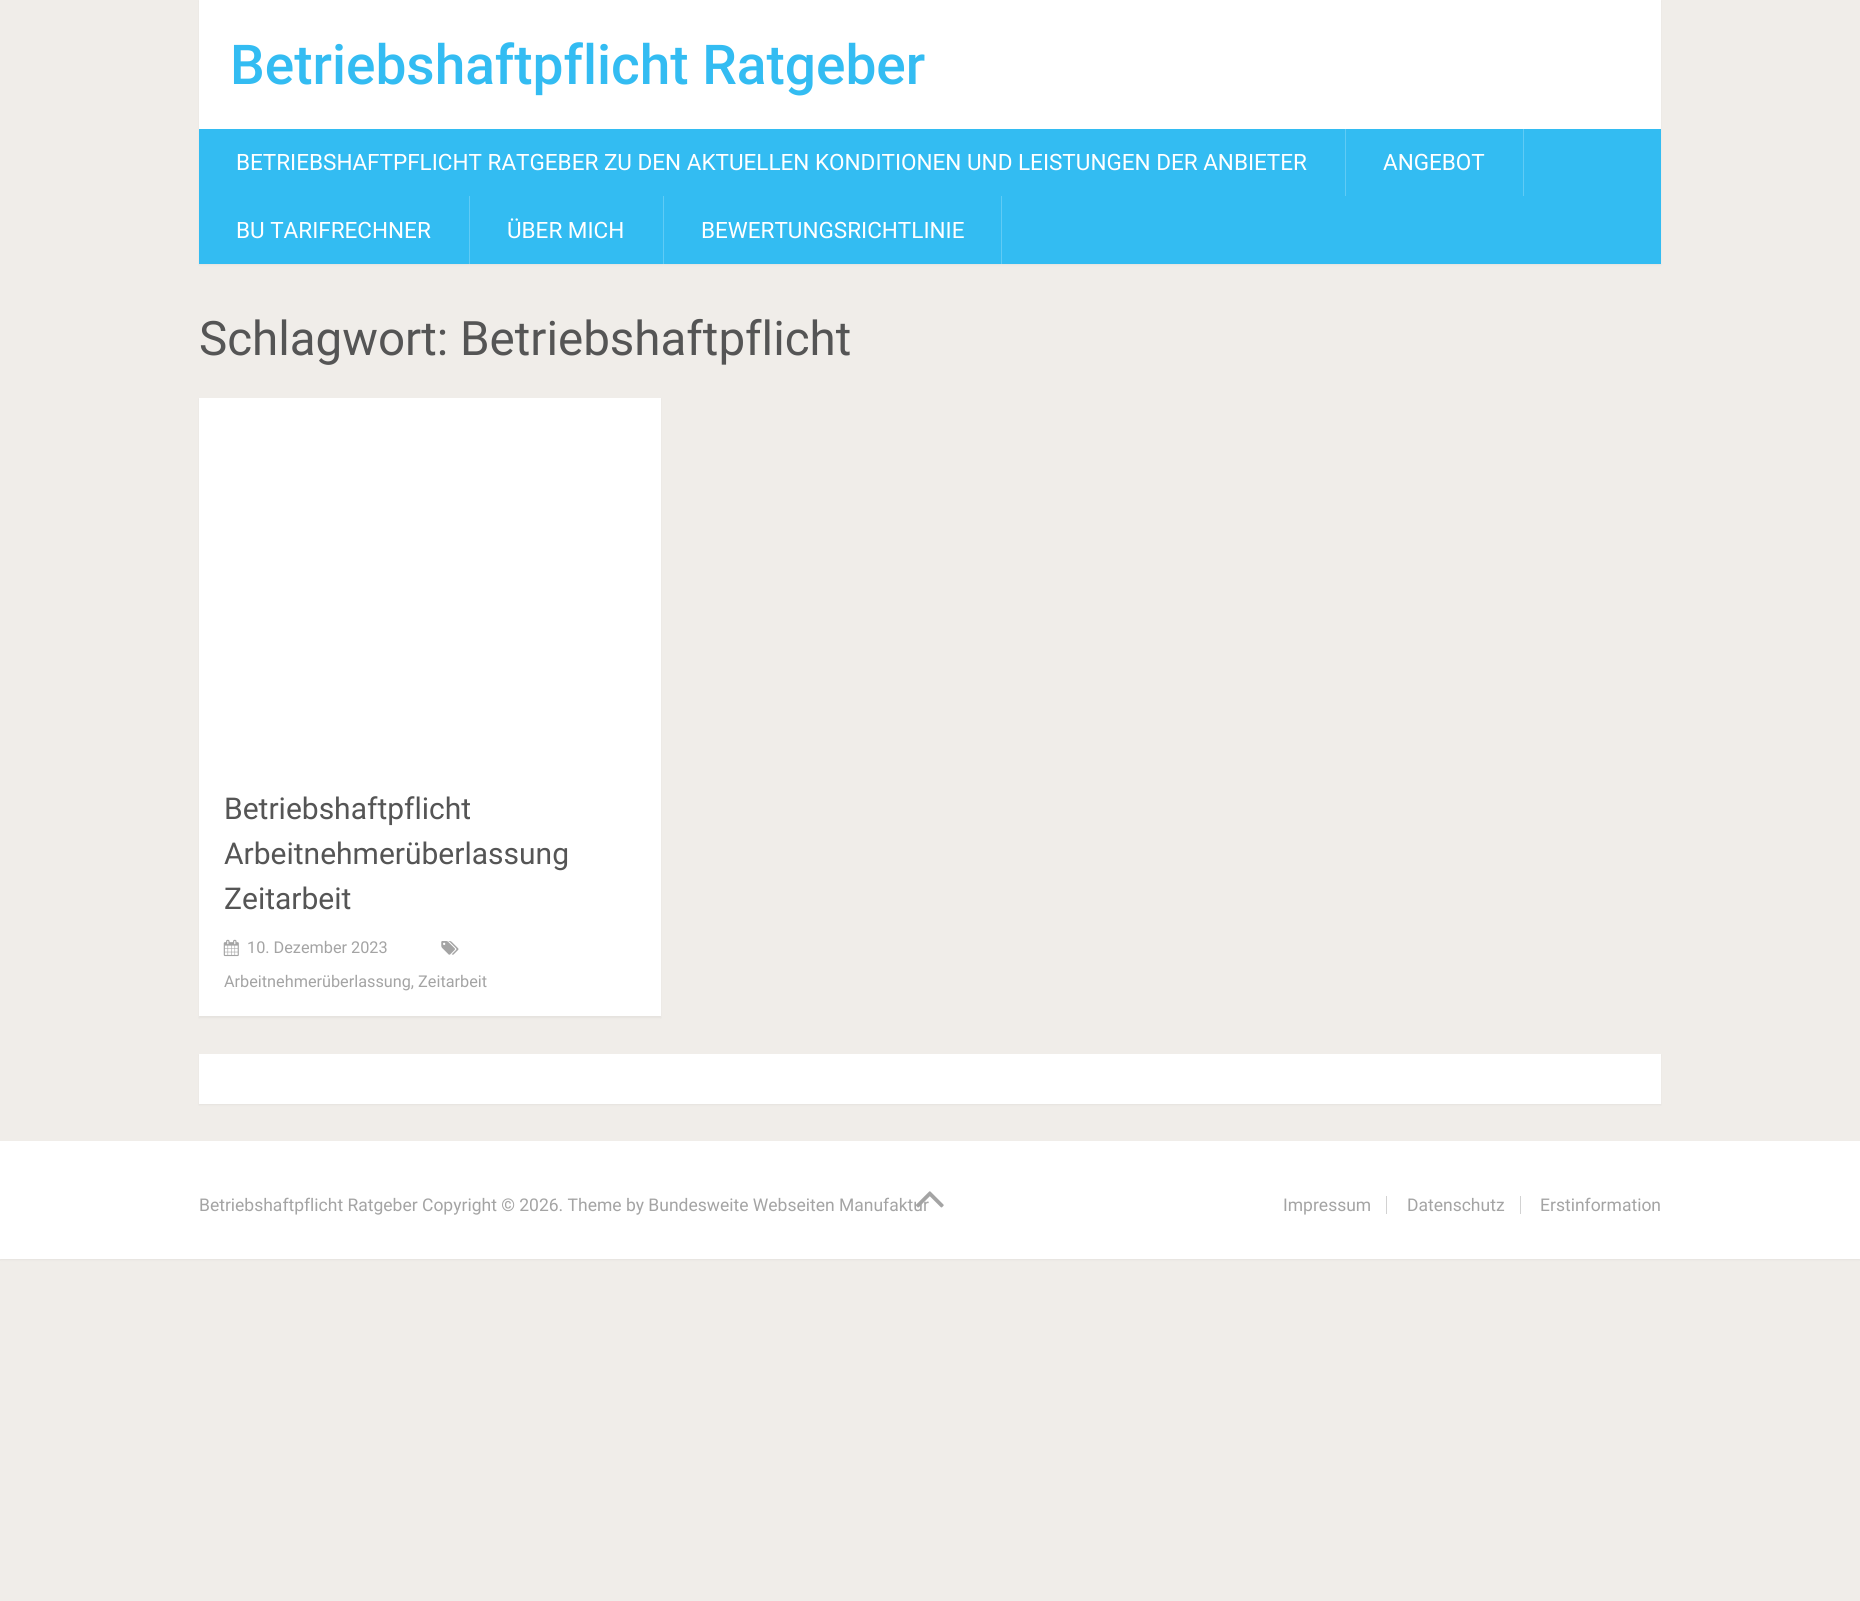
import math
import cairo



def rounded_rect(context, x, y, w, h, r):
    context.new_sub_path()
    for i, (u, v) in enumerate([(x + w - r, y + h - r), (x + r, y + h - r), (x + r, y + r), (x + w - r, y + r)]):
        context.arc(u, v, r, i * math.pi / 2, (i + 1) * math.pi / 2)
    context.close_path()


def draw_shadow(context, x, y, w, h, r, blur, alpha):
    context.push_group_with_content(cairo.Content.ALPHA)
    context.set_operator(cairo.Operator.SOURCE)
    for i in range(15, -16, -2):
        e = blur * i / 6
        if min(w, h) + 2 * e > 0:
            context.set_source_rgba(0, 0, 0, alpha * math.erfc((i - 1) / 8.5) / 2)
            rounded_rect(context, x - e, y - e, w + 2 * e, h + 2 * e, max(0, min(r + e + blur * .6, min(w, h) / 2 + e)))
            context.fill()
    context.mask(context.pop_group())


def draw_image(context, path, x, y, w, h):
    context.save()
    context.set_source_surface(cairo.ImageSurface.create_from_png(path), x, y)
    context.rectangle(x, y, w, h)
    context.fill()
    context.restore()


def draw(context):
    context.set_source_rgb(240 / 255, 237 / 255, 233 / 255)
    context.paint()
    context.set_source_rgb(0, 0, 0)
    draw_shadow(context, 199, 1, 1462, 264, 0, 1, 0.05)
    context.set_source_rgb(1, 1, 1)
    context.rectangle(199, 0, 1462, 129)
    context.fill()
    context.set_source_rgb(51 / 255, 188 / 255, 242 / 255)
    context.rectangle(199, 129, 1462, 135)
    context.fill()
    context.set_source_rgb(96 / 255, 203 / 255, 245 / 255)
    context.rectangle(1345, 129, 1, 67)
    context.fill()
    context.rectangle(1523, 129, 1, 67)
    context.fill()
    context.rectangle(469, 196, 1, 68)
    context.fill()
    context.rectangle(663, 196, 1, 68)
    context.fill()
    context.rectangle(1001, 196, 1, 68)
    context.fill()
    context.set_source_rgb(0, 0, 0)
    draw_shadow(context, 199, 399, 462, 619, 0, 1, 0.05)
    context.set_source_rgb(1, 1, 1)
    context.rectangle(199, 398, 462, 618)
    context.fill()
    draw_image(context, "images/1.png", 223, 939, 16, 18)
    draw_image(context, "images/2.png", 441, 941, 18, 14)
    context.set_source_rgb(0, 0, 0)
    draw_shadow(context, 199, 1055, 1462, 50, 0, 1, 0.05)
    context.set_source_rgb(1, 1, 1)
    context.rectangle(199, 1054, 1462, 50)
    context.fill()
    context.set_source_rgb(0, 0, 0)
    draw_shadow(context, 0, 1143, 1860, 117, 0, 1, 0.05)
    context.set_source_rgb(1, 1, 1)
    context.rectangle(0, 1141, 1860, 118)
    context.fill()
    context.set_source_rgb(210 / 255, 210 / 255, 210 / 255)
    context.rectangle(1386, 1196, 1, 18)
    context.fill()
    context.rectangle(1520, 1196, 1, 18)
    context.fill()
    context.select_font_face("Roboto Medium")
    context.set_font_size(55)
    context.set_source_rgb(51 / 255, 188 / 255, 242 / 255)
    context.move_to(230, 84)
    context.show_text("Betriebshaftpflicht Ratgeber")
    context.select_font_face("Roboto")
    context.set_font_size(22.5)
    context.set_source_rgb(1, 1, 1)
    context.move_to(236, 170)
    context.show_text("BETRIEBSHAFTPFLICHT RATGEBER ZU DEN AKTUELLEN KONDITIONEN UND LEISTUNGEN DER ANBIETER")
    context.move_to(1383, 170)
    context.show_text("ANGEBOT")
    context.move_to(236, 238)
    context.show_text("BU TARIFRECHNER")
    context.move_to(507, 238)
    context.show_text("ÜBER MICH")
    context.move_to(701, 238)
    context.show_text("BEWERTUNGSRICHTLINIE")
    context.set_font_size(47.5)
    context.set_source_rgb(85 / 255, 85 / 255, 85 / 255)
    context.move_to(199, 355)
    context.show_text("Schlagwort: Betriebshaftpflicht")
    context.set_font_size(30)
    context.move_to(224, 819)
    context.show_text("Betriebshaftpflicht")
    context.move_to(224, 864)
    context.show_text("Arbeitnehmerüberlassung")
    context.move_to(224, 909)
    context.show_text("Zeitarbeit")
    context.set_font_size(16.25)
    context.set_source_rgb(164 / 255, 164 / 255, 164 / 255)
    context.move_to(247, 953)
    context.show_text("10. Dezember 2023")
    context.move_to(224, 987)
    context.show_text("Arbeitnehmerüberlassung, Zeitarbeit")
    context.set_font_size(17.5)
    context.move_to(199, 1211)
    context.show_text("Betriebshaftpflicht Ratgeber Copyright © 2026. Theme by Bundesweite Webseiten Manufaktur")
    draw_image(context, "images/3.png", 916, 1191, 28, 17)
    context.move_to(1283, 1211)
    context.show_text("Impressum")
    context.move_to(1407, 1211)
    context.show_text("Datenschutz")
    context.move_to(1540, 1211)
    context.show_text("Erstinformation")


surface = cairo.ImageSurface(cairo.Format.RGB24, 1860, 1601)
context = cairo.Context(surface)
options = cairo.FontOptions()
options.set_hint_metrics(cairo.HintMetrics.OFF)
options.set_hint_style(cairo.HintStyle.NONE)
context.set_font_options(options)
context.set_miter_limit(4)
draw(context)
surface.write_to_png("out.png")
